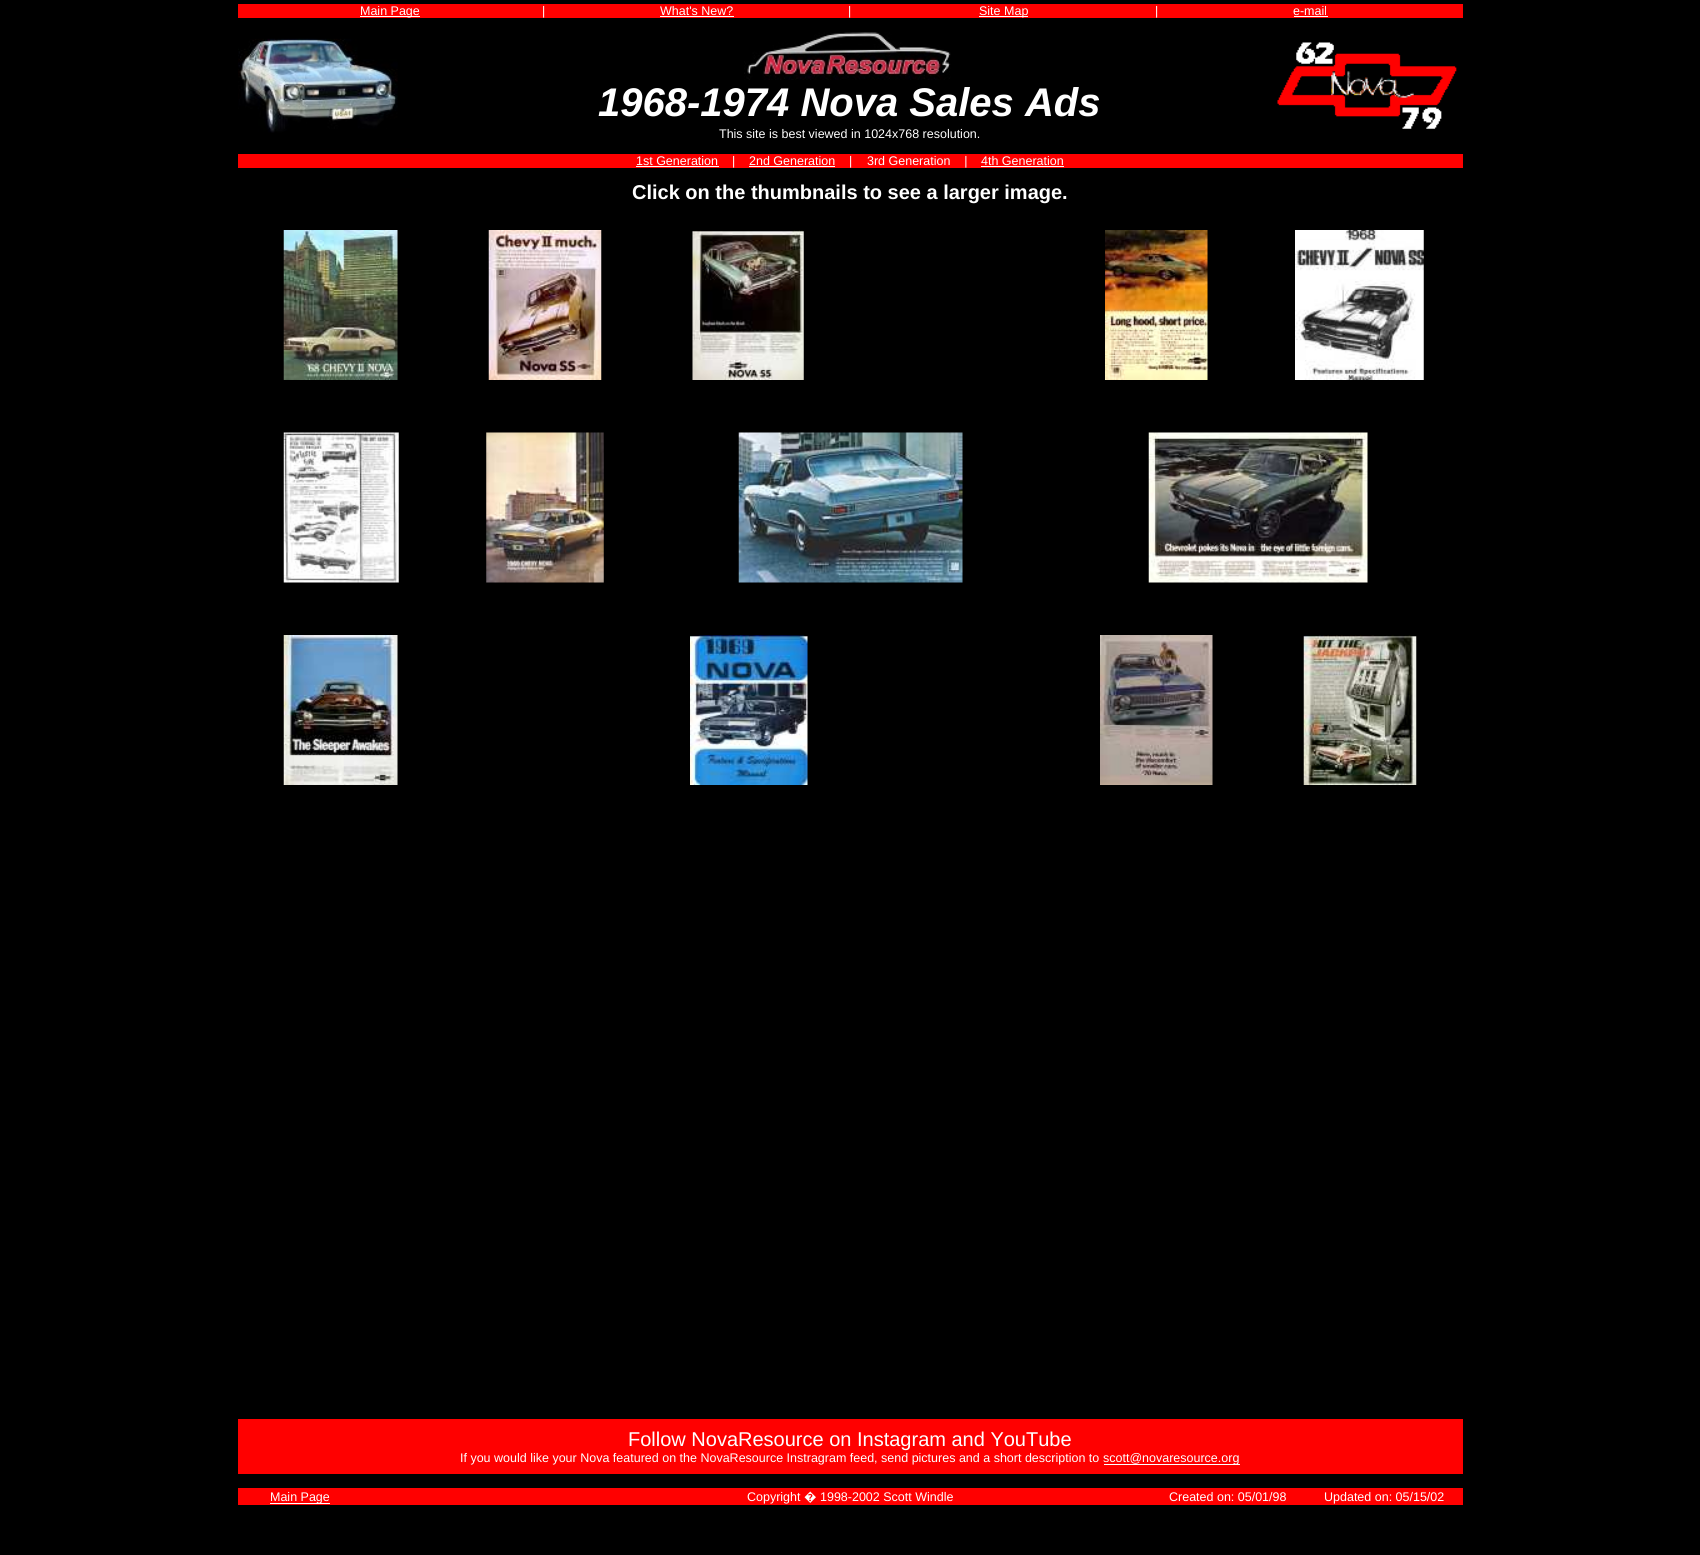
import math
import cairo



def draw_image(context, path, x, y, w, h):
    context.save()
    context.set_source_surface(cairo.ImageSurface.create_from_png(path), x, y)
    context.rectangle(x, y, w, h)
    context.fill()
    context.restore()


def draw(context):
    context.set_source_rgb(0, 0, 0)
    context.paint()
    context.set_source_rgb(1, 0, 0)
    context.rectangle(238, 4, 1225, 14)
    context.fill()
    context.set_source_rgb(1, 1, 1)
    context.rectangle(360, 16, 60, 1)
    context.fill()
    context.rectangle(660, 16, 74, 1)
    context.fill()
    context.rectangle(979, 16, 49, 1)
    context.fill()
    context.rectangle(1294, 16, 34, 1)
    context.fill()
    draw_image(context, "images/1.png", 238, 38, 160, 95)
    draw_image(context, "images/2.png", 744, 32, 207, 48)
    draw_image(context, "images/3.png", 1277, 42, 180, 87)
    context.set_source_rgb(1, 0, 0)
    context.rectangle(238, 154, 1225, 14)
    context.fill()
    context.set_source_rgb(1, 1, 1)
    context.rectangle(636, 166, 83, 1)
    context.fill()
    context.rectangle(749, 166, 86, 1)
    context.fill()
    context.rectangle(981, 166, 83, 1)
    context.fill()
    draw_image(context, "images/4.png", 283, 230, 115, 150)
    draw_image(context, "images/5.png", 488, 230, 114, 150)
    draw_image(context, "images/6.png", 692, 230, 112, 150)
    draw_image(context, "images/7.png", 1105, 230, 103, 150)
    draw_image(context, "images/8.png", 1295, 230, 129, 150)
    draw_image(context, "images/9.png", 283, 432, 116, 151)
    draw_image(context, "images/10.png", 486, 432, 118, 151)
    draw_image(context, "images/11.png", 738, 432, 225, 151)
    draw_image(context, "images/12.png", 1148, 432, 220, 151)
    draw_image(context, "images/13.png", 283, 635, 115, 150)
    draw_image(context, "images/14.png", 690, 635, 118, 150)
    draw_image(context, "images/15.png", 1100, 635, 113, 150)
    draw_image(context, "images/16.png", 1303, 635, 114, 150)
    context.set_source_rgb(1, 0, 0)
    context.rectangle(238, 1419, 1225, 55)
    context.fill()
    context.set_source_rgb(1, 1, 1)
    context.rectangle(1104, 1464, 136, 1)
    context.fill()
    context.set_source_rgb(1, 0, 0)
    context.rectangle(238, 1488, 1225, 17)
    context.fill()
    context.set_source_rgb(1, 1, 1)
    context.rectangle(270, 1503, 60, 1)
    context.fill()
    context.select_font_face("Liberation Sans")
    context.set_font_size(12.5)
    context.move_to(360, 15)
    context.show_text("Main Page")
    context.move_to(542, 15)
    context.show_text("|")
    context.move_to(660, 15)
    context.show_text("What's New?")
    context.move_to(848, 15)
    context.show_text("|")
    context.move_to(979, 15)
    context.show_text("Site Map")
    context.move_to(1155, 15)
    context.show_text("|")
    context.move_to(1293, 15)
    context.show_text("e-mail")
    context.select_font_face("Liberation Sans", cairo.FontSlant.ITALIC, cairo.FontWeight.BOLD)
    context.set_font_size(40)
    context.move_to(598, 116)
    context.show_text("1968-1974 Nova Sales Ads")
    context.select_font_face("Liberation Sans")
    context.set_font_size(12.5)
    context.move_to(719, 138)
    context.show_text("This site is best viewed in 1024x768 resolution.")
    context.move_to(636, 165)
    context.show_text("1st Generation")
    context.move_to(732, 165)
    context.show_text("|")
    context.move_to(749, 165)
    context.show_text("2nd Generation")
    context.move_to(849, 165)
    context.show_text("|")
    context.move_to(867, 165)
    context.show_text("3rd Generation    |")
    context.move_to(981, 165)
    context.show_text("4th Generation")
    context.select_font_face("Liberation Sans", cairo.FontSlant.NORMAL, cairo.FontWeight.BOLD)
    context.set_font_size(20)
    context.move_to(632, 199)
    context.show_text("Click on the thumbnails to see a larger image.")
    context.select_font_face("Liberation Sans")
    context.move_to(628, 1446)
    context.show_text("Follow NovaResource on Instagram and YouTube")
    context.set_font_size(12.5)
    context.move_to(460, 1462)
    context.show_text("If you would like your Nova featured on the NovaResource Instragram feed, send pictures and a short description to")
    context.move_to(1103, 1462)
    context.show_text("scott@novaresource.org")
    context.move_to(270, 1501)
    context.show_text("Main Page")
    context.move_to(747, 1501)
    context.show_text("Copyright")
    context.select_font_face("Noto Sans")
    context.move_to(804, 1501)
    context.show_text("�")
    context.select_font_face("Liberation Sans")
    context.move_to(820, 1501)
    context.show_text("1998-2002 Scott Windle")
    context.move_to(1169, 1501)
    context.show_text("Created on: 05/01/98")
    context.move_to(1324, 1501)
    context.show_text("Updated on: 05/15/02")


surface = cairo.ImageSurface(cairo.Format.RGB24, 1700, 1555)
context = cairo.Context(surface)
options = cairo.FontOptions()
options.set_hint_metrics(cairo.HintMetrics.OFF)
options.set_hint_style(cairo.HintStyle.NONE)
context.set_font_options(options)
context.set_miter_limit(4)
draw(context)
surface.write_to_png("out.png")
